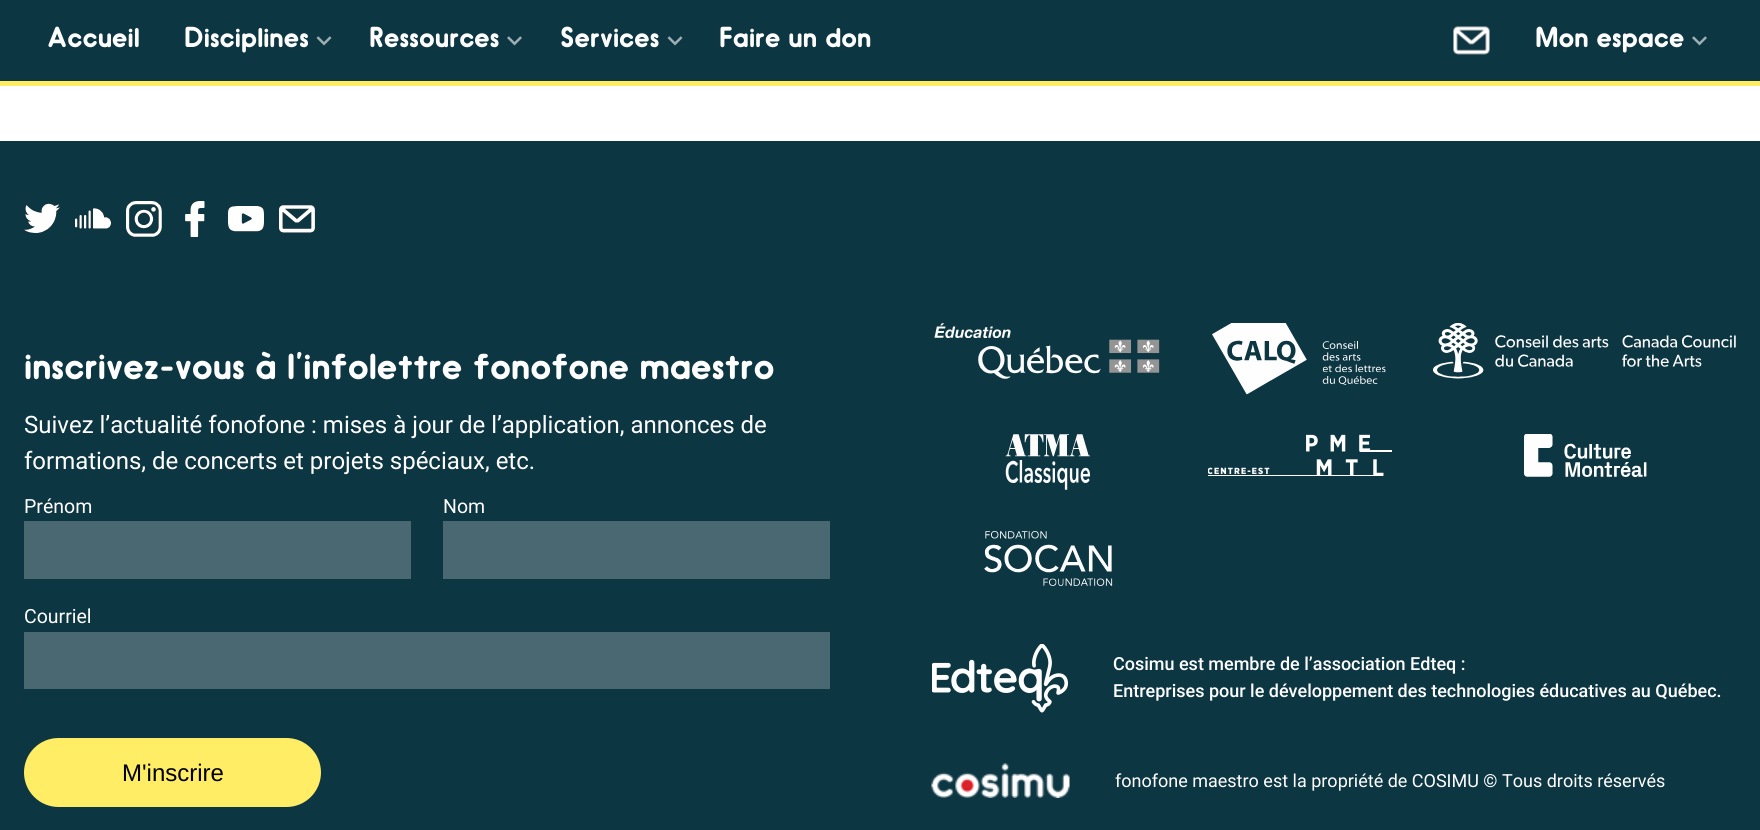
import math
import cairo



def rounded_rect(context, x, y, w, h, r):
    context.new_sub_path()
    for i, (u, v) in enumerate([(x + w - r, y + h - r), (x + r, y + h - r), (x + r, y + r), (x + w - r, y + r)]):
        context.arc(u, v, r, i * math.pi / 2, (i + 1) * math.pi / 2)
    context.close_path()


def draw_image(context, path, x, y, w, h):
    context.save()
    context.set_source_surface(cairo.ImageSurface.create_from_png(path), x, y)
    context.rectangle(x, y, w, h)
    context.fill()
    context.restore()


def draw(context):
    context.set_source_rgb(1, 1, 1)
    context.paint()
    context.set_source_rgb(13 / 255, 54 / 255, 67 / 255)
    context.rectangle(0, 0, 1760, 81)
    context.fill()
    context.set_source_rgb(1, 237 / 255, 102 / 255)
    context.rectangle(0, 81, 1760, 5)
    context.fill()
    draw_image(context, "images/1.png", 316, 36, 16, 10)
    draw_image(context, "images/2.png", 507, 36, 15, 10)
    draw_image(context, "images/1.png", 667, 36, 16, 10)
    draw_image(context, "images/3.png", 1453, 26, 37, 29)
    draw_image(context, "images/2.png", 1692, 36, 15, 10)
    context.set_source_rgb(13 / 255, 54 / 255, 67 / 255)
    context.rectangle(0, 141, 1760, 689)
    context.fill()
    draw_image(context, "images/4.png", 24, 203, 36, 30)
    draw_image(context, "images/5.png", 75, 208, 36, 21)
    draw_image(context, "images/6.png", 126, 201, 36, 36)
    draw_image(context, "images/7.png", 185, 201, 20, 36)
    draw_image(context, "images/8.png", 228, 206, 36, 26)
    draw_image(context, "images/9.png", 279, 205, 36, 28)
    context.set_source_rgb(74 / 255, 104 / 255, 114 / 255)
    context.rectangle(24, 521, 387, 58)
    context.fill()
    context.rectangle(443, 521, 387, 58)
    context.fill()
    context.rectangle(24, 632, 806, 57)
    context.fill()
    context.set_source_rgb(1, 237 / 255, 102 / 255)
    rounded_rect(context, 24, 738, 297, 69, 34.5)
    context.fill()
    draw_image(context, "images/10.png", 934, 323, 226, 56)
    draw_image(context, "images/11.png", 1212, 323, 174, 72)
    draw_image(context, "images/12.png", 1433, 323, 303, 56)
    draw_image(context, "images/13.png", 1005, 434, 86, 56)
    draw_image(context, "images/14.png", 1208, 434, 184, 42)
    draw_image(context, "images/15.png", 1524, 434, 123, 43)
    draw_image(context, "images/16.png", 984, 531, 129, 55)
    draw_image(context, "images/17.png", 932, 644, 136, 69)
    draw_image(context, "images/18.png", 931, 763, 139, 35)
    context.select_font_face("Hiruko")
    context.set_font_size(27)
    context.set_source_rgb(1, 1, 1)
    context.move_to(47, 47)
    context.show_text("Accueil")
    context.move_to(184, 47)
    context.show_text("Disciplines")
    context.move_to(369, 47)
    context.show_text("Ressources")
    context.move_to(560, 47)
    context.show_text("Services")
    context.move_to(719, 47)
    context.show_text("Faire un don")
    context.move_to(1535, 47)
    context.show_text("Mon espace")
    context.set_font_size(36)
    context.move_to(24, 379)
    context.show_text("inscrivez-vous à l’infolettre fonofone maestro")
    context.select_font_face("Roboto")
    context.set_font_size(24)
    context.move_to(24, 433)
    context.show_text("Suivez l’actualité fonofone : mises à jour de l’application, annonces de")
    context.move_to(24, 469)
    context.show_text("formations, de concerts et projets spéciaux, etc.")
    context.set_font_size(19.5)
    context.move_to(24, 513)
    context.show_text("Prénom")
    context.move_to(443, 513)
    context.show_text("Nom")
    context.move_to(24, 623)
    context.show_text("Courriel")
    context.select_font_face("Liberation Sans")
    context.set_font_size(24)
    context.set_source_rgb(0, 0, 0)
    context.move_to(122, 781)
    context.show_text("M'inscrire")
    context.select_font_face("Roboto Medium")
    context.set_font_size(18)
    context.set_source_rgb(1, 1, 1)
    context.move_to(1113, 670)
    context.show_text("Cosimu est membre de l’association Edteq :")
    context.move_to(1113, 697)
    context.show_text("Entreprises pour le développement des technologies éducatives au Québec.")
    context.select_font_face("Roboto")
    context.move_to(1115, 787)
    context.show_text("fonofone maestro est la propriété de COSIMU © Tous droits réservés")


surface = cairo.ImageSurface(cairo.Format.RGB24, 1760, 830)
context = cairo.Context(surface)
options = cairo.FontOptions()
options.set_hint_metrics(cairo.HintMetrics.OFF)
options.set_hint_style(cairo.HintStyle.NONE)
context.set_font_options(options)
context.set_miter_limit(4)
draw(context)
surface.write_to_png("out.png")
